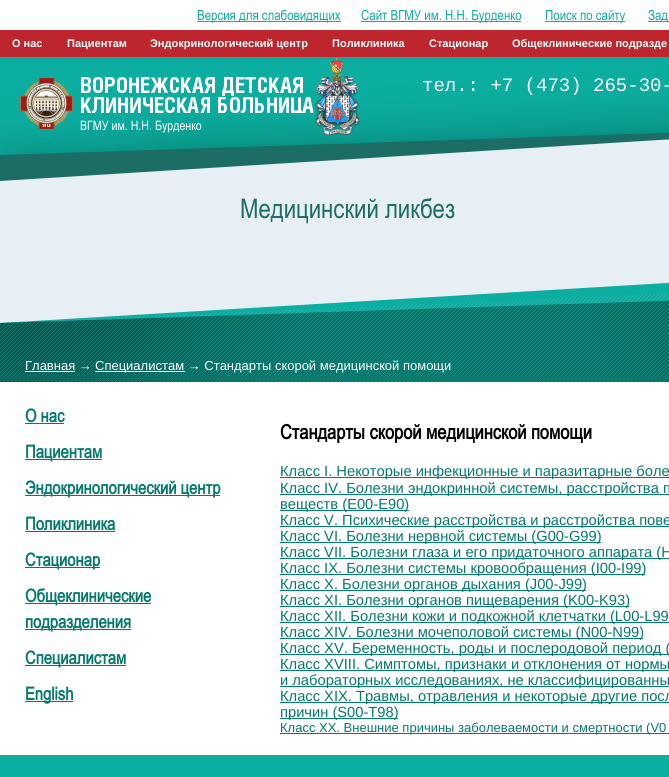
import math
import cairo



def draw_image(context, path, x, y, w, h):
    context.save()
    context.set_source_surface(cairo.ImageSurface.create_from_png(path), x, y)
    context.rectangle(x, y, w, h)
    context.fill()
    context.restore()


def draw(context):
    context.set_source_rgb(1, 1, 1)
    context.paint()
    context.set_source_rgb(11 / 255, 174 / 255, 160 / 255)
    context.rectangle(197, 21, 144, 1)
    context.fill()
    context.rectangle(361, 21, 160, 1)
    context.fill()
    context.rectangle(545, 21, 80, 1)
    context.fill()
    context.rectangle(648, 21, 21, 1)
    context.fill()
    context.set_source_rgb(231 / 255, 239 / 255, 245 / 255)
    context.rectangle(0, 139, 669, 184)
    context.fill()
    draw_image(context, "images/1.png", 0, 57, 669, 124)
    context.set_source_rgb(188 / 255, 38 / 255, 44 / 255)
    context.rectangle(0, 56, 669, 1)
    context.fill()
    context.rectangle(0, 30, 669, 26)
    context.fill()
    draw_image(context, "images/2.png", 20, 77, 53, 53)
    draw_image(context, "images/3.png", 315, 57, 45, 78)
    draw_image(context, "images/4.png", 81, 77, 233, 36)
    draw_image(context, "images/5.png", 0, 282, 669, 100)
    context.set_source_rgb(1, 1, 1)
    context.rectangle(25, 371, 50, 1)
    context.fill()
    context.rectangle(95, 371, 90, 1)
    context.fill()
    context.set_source_rgb(4 / 255, 122 / 255, 110 / 255)
    context.rectangle(25, 423, 39, 1)
    context.fill()
    context.rectangle(25, 459, 77, 1)
    context.fill()
    context.rectangle(25, 495, 195, 1)
    context.fill()
    context.rectangle(25, 531, 90, 1)
    context.fill()
    context.rectangle(25, 567, 75, 1)
    context.fill()
    context.rectangle(25, 603, 126, 1)
    context.fill()
    context.rectangle(25, 629, 106, 1)
    context.fill()
    context.rectangle(25, 665, 101, 1)
    context.fill()
    context.rectangle(25, 701, 48, 1)
    context.fill()
    context.rectangle(280, 477, 389, 1)
    context.fill()
    context.rectangle(280, 494, 389, 1)
    context.fill()
    context.rectangle(280, 510, 129, 1)
    context.fill()
    context.rectangle(280, 526, 389, 1)
    context.fill()
    context.rectangle(280, 542, 321, 1)
    context.fill()
    context.rectangle(280, 558, 389, 1)
    context.fill()
    context.rectangle(280, 574, 365, 1)
    context.fill()
    context.rectangle(280, 590, 306, 1)
    context.fill()
    context.rectangle(280, 606, 349, 1)
    context.fill()
    context.rectangle(280, 622, 389, 1)
    context.fill()
    context.rectangle(280, 638, 363, 1)
    context.fill()
    context.rectangle(280, 654, 389, 1)
    context.fill()
    context.rectangle(280, 670, 389, 1)
    context.fill()
    context.rectangle(280, 686, 389, 1)
    context.fill()
    context.rectangle(280, 702, 389, 1)
    context.fill()
    context.rectangle(280, 718, 118, 1)
    context.fill()
    context.rectangle(280, 733, 389, 1)
    context.fill()
    context.set_source_rgb(11 / 255, 174 / 255, 160 / 255)
    context.rectangle(0, 755, 669, 22)
    context.fill()
    context.select_font_face("Arial")
    context.set_font_size(14)
    context.move_to(197, 20)
    context.show_text("Версия для слабовидящих")
    context.move_to(361, 20)
    context.show_text("Сайт ВГМУ им. Н.Н. Бурденко")
    context.move_to(545, 20)
    context.show_text("Поиск по сайту")
    context.move_to(648, 20)
    context.show_text("Зад")
    context.select_font_face("Liberation Sans", cairo.FontSlant.NORMAL, cairo.FontWeight.BOLD)
    context.set_font_size(11)
    context.set_source_rgb(1, 1, 1)
    context.move_to(12, 47)
    context.show_text("О нас")
    context.move_to(67, 47)
    context.show_text("Пациентам")
    context.move_to(150, 47)
    context.show_text("Эндокринологический центр")
    context.move_to(332, 47)
    context.show_text("Поликлиника")
    context.move_to(429, 47)
    context.show_text("Стационар")
    context.move_to(512, 47)
    context.show_text("Общеклинические подразде")
    context.select_font_face("Liberation Mono")
    context.set_font_size(19)
    context.move_to(422, 91)
    context.show_text("тел.: +7 (473) 265-30-")
    context.select_font_face("Arial")
    context.set_font_size(13)
    context.move_to(80, 130)
    context.show_text("ВГМУ им. Н.Н. Бурденко")
    context.set_font_size(27)
    context.set_source_rgb(28 / 255, 110 / 255, 101 / 255)
    context.move_to(240, 218)
    context.show_text("Медицинский ликбез")
    context.select_font_face("Liberation Sans")
    context.set_font_size(13)
    context.set_source_rgb(1, 1, 1)
    context.move_to(25, 370)
    context.show_text("Главная →")
    context.move_to(95, 370)
    context.show_text("Специалистам → Стандарты скорой медицинской помощи")
    context.select_font_face("Arial", cairo.FontSlant.NORMAL, cairo.FontWeight.BOLD)
    context.set_font_size(18)
    context.set_source_rgb(4 / 255, 122 / 255, 110 / 255)
    context.move_to(25, 422)
    context.show_text("О нас")
    context.move_to(25, 458)
    context.show_text("Пациентам")
    context.move_to(25, 494)
    context.show_text("Эндокринологический центр")
    context.move_to(25, 530)
    context.show_text("Поликлиника")
    context.move_to(25, 566)
    context.show_text("Стационар")
    context.move_to(25, 602)
    context.show_text("Общеклинические")
    context.move_to(25, 628)
    context.show_text("подразделения")
    context.move_to(25, 664)
    context.show_text("Специалистам")
    context.move_to(25, 700)
    context.show_text("English")
    context.set_font_size(20)
    context.set_source_rgb(0, 0, 0)
    context.move_to(280, 439)
    context.show_text("Стандарты скорой медицинской помощи")
    context.select_font_face("Liberation Sans")
    context.set_font_size(14.7)
    context.set_source_rgb(4 / 255, 122 / 255, 110 / 255)
    context.move_to(280, 476)
    context.show_text("Класс I. Некоторые инфекционные и паразитарные боле")
    context.move_to(280, 493)
    context.show_text("Класс IV. Болезни эндокринной системы, расстройства п")
    context.move_to(280, 509)
    context.show_text("веществ (E00-E90)")
    context.move_to(280, 525)
    context.show_text("Класс V. Психические расстройства и расстройства пове")
    context.move_to(280, 541)
    context.show_text("Класс VI. Болезни нервной системы (G00-G99)")
    context.move_to(280, 557)
    context.show_text("Класс VII. Болезни глаза и его придаточного аппарата (H")
    context.move_to(280, 573)
    context.show_text("Класс IX. Болезни системы кровообращения (I00-I99)")
    context.move_to(280, 589)
    context.show_text("Класс X. Болезни органов дыхания (J00-J99)")
    context.move_to(280, 605)
    context.show_text("Класс XI. Болезни органов пищеварения (K00-K93)")
    context.move_to(280, 621)
    context.show_text("Класс XII. Болезни кожи и подкожной клетчатки (L00-L99")
    context.move_to(280, 637)
    context.show_text("Класс XIV. Болезни мочеполовой системы (N00-N99)")
    context.move_to(280, 653)
    context.show_text("Класс XV. Беременность, роды и послеродовой период (")
    context.move_to(280, 669)
    context.show_text("Класс XVIII. Симптомы, признаки и отклонения от нормы")
    context.move_to(280, 685)
    context.show_text("и лабораторных исследованиях, не классифицированны")
    context.move_to(280, 701)
    context.show_text("Класс XIX. Травмы, отравления и некоторые другие посл")
    context.move_to(280, 717)
    context.show_text("причин (S00-T98)")
    context.set_font_size(13)
    context.move_to(280, 732)
    context.show_text("Класс XX. Внешние причины заболеваемости и смертности (V0")


surface = cairo.ImageSurface(cairo.Format.RGB24, 669, 777)
context = cairo.Context(surface)
options = cairo.FontOptions()
options.set_hint_metrics(cairo.HintMetrics.OFF)
options.set_hint_style(cairo.HintStyle.NONE)
context.set_font_options(options)
context.set_miter_limit(4)
draw(context)
surface.write_to_png("out.png")
